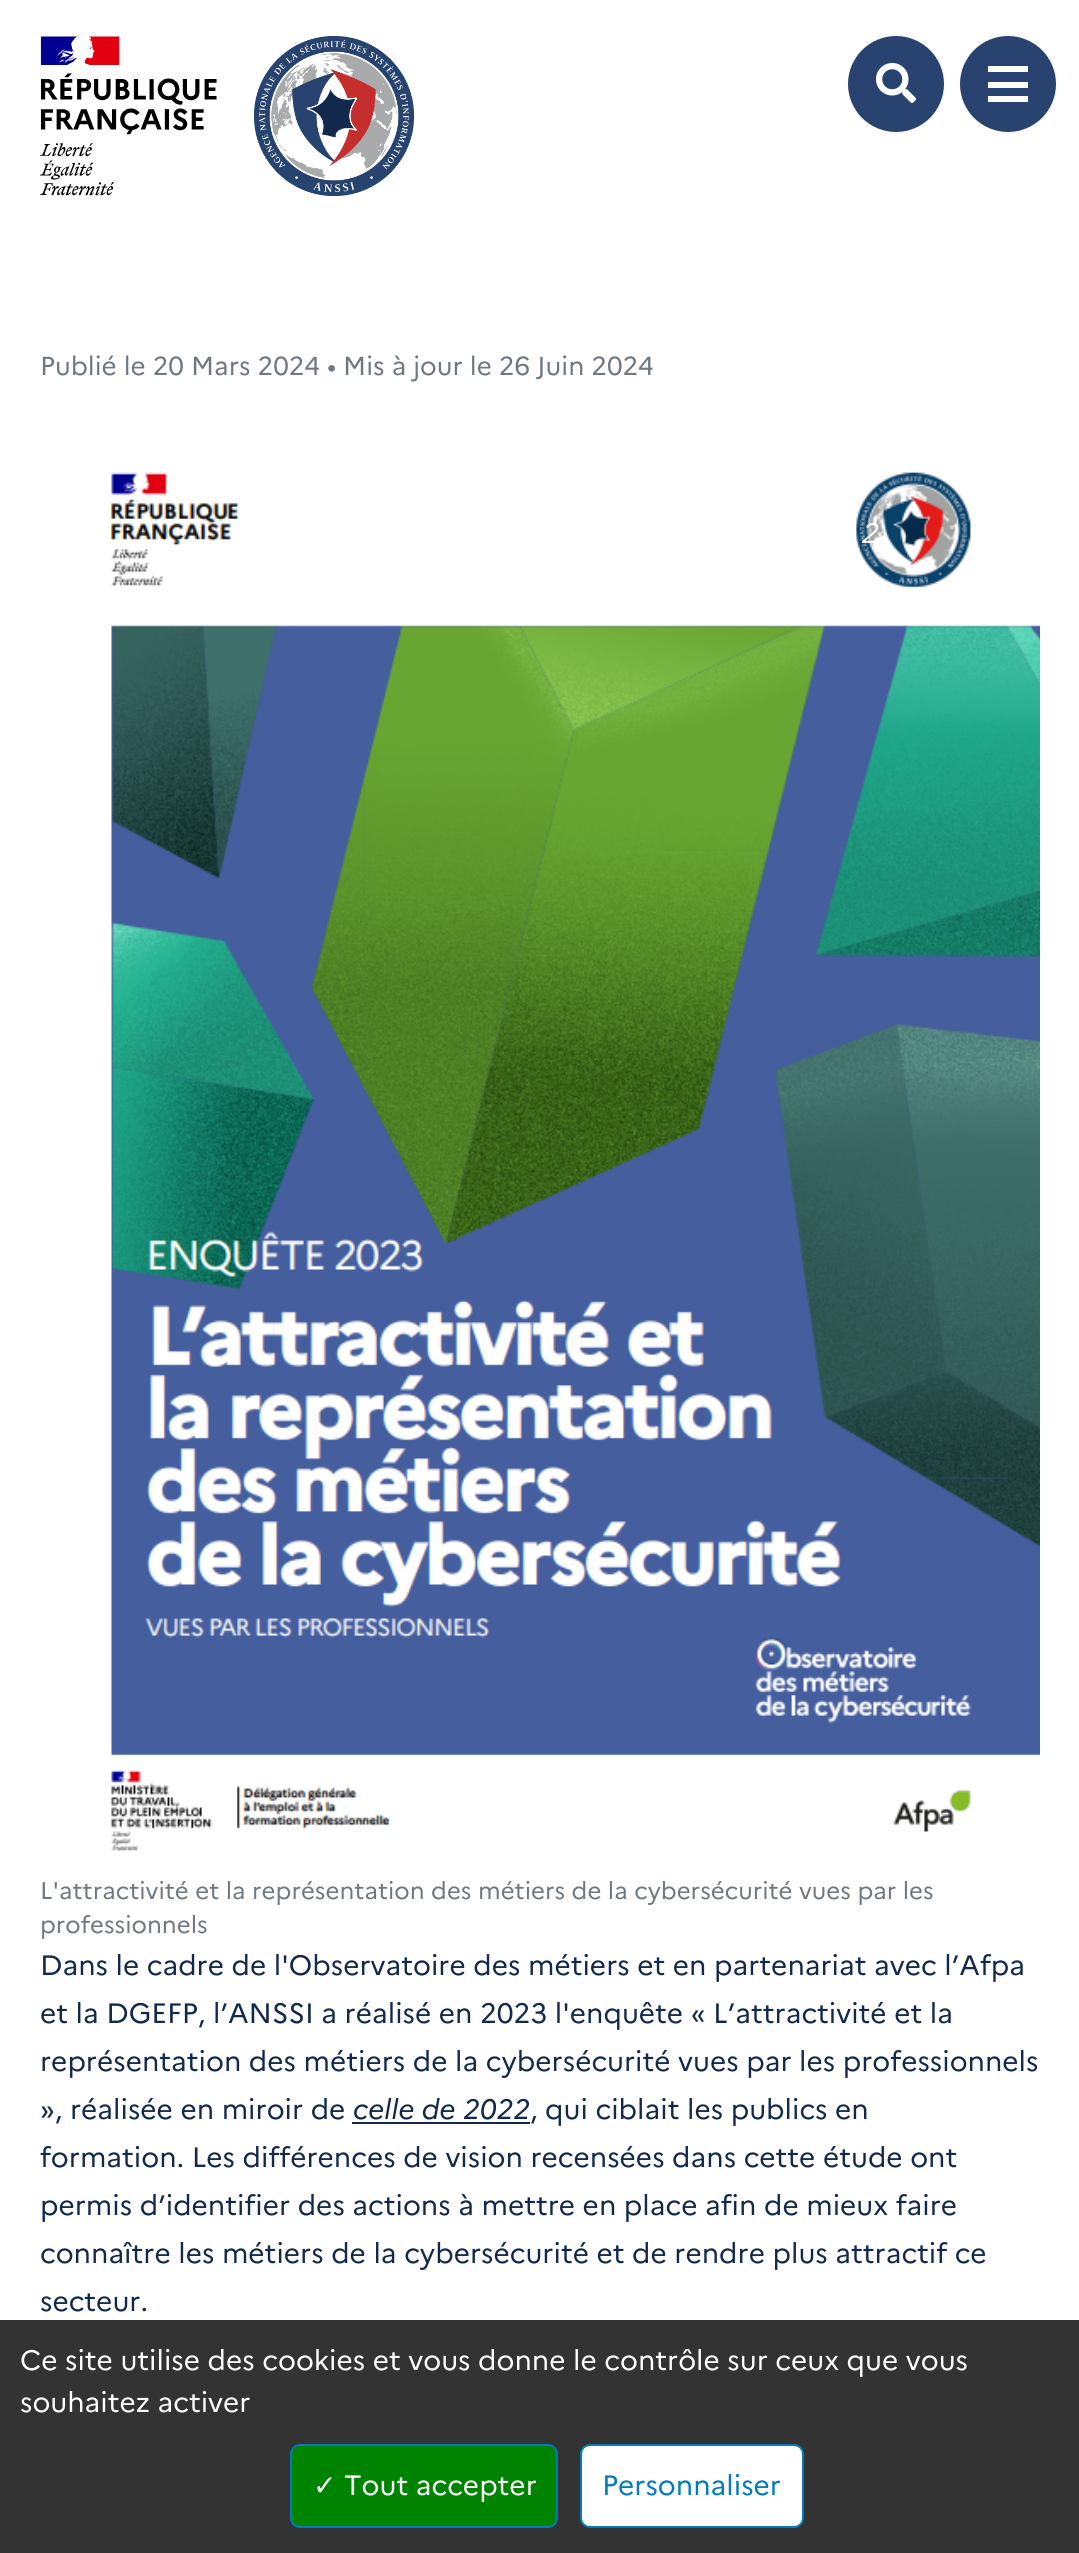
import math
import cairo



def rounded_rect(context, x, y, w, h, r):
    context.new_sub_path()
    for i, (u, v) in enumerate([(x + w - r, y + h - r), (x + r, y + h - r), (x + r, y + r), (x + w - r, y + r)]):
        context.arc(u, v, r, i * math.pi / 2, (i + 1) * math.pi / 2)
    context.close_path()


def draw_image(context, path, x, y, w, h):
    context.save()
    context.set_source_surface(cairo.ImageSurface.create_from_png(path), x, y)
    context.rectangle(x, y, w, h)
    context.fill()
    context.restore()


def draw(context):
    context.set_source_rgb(1, 1, 1)
    context.paint()
    draw_image(context, "images/1.png", 40, 36, 177, 160)
    draw_image(context, "images/2.png", 254, 36, 160, 160)
    context.set_source_rgb(40 / 255, 67 / 255, 112 / 255)
    context.arc(896, 84, 48, 0, 2 * math.pi)
    context.fill()
    draw_image(context, "images/3.png", 876, 63, 40, 40)
    context.arc(1008, 84, 48, 0, 2 * math.pi)
    context.fill()
    context.set_source_rgb(1, 1, 1)
    context.rectangle(988, 66, 40, 6)
    context.fill()
    context.rectangle(988, 82, 40, 6)
    context.fill()
    context.rectangle(988, 96, 40, 6)
    context.fill()
    draw_image(context, "images/4.png", 109, 472, 931, 1379)
    context.set_source_rgb(18 / 255, 41 / 255, 77 / 255)
    context.rectangle(352, 2122, 178, 2)
    context.fill()
    context.set_source_rgb(51 / 255, 51 / 255, 51 / 255)
    context.rectangle(0, 2320, 1079, 233)
    context.fill()
    context.set_source_rgb(0, 131 / 255, 0)
    rounded_rect(context, 291, 2445, 266, 82, 9)
    context.fill_preserve()
    context.set_source_rgb(0, 123 / 255, 188 / 255)
    context.stroke()
    context.set_source_rgb(1, 1, 1)
    rounded_rect(context, 581, 2445, 222, 82, 9)
    context.fill_preserve()
    context.set_source_rgb(0, 123 / 255, 188 / 255)
    context.stroke()
    context.select_font_face("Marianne")
    context.set_font_size(26)
    context.set_source_rgb(110 / 255, 120 / 255, 129 / 255)
    context.move_to(40, 375)
    context.show_text("Publié le 20 Mars 2024 • Mis à jour le 26 Juin 2024")
    context.set_font_size(24)
    context.move_to(40, 1899)
    context.show_text("L'attractivité et la représentation des métiers de la cybersécurité vues par les")
    context.move_to(40, 1933)
    context.show_text("professionnels")
    context.set_font_size(28)
    context.set_source_rgb(18 / 255, 41 / 255, 77 / 255)
    context.move_to(40, 1975)
    context.show_text("Dans le cadre de l'Observatoire des métiers et en partenariat avec l’Afpa")
    context.move_to(40, 2023)
    context.show_text("et la DGEFP, l’ANSSI a réalisé en 2023 l'enquête « L’attractivité et la")
    context.move_to(40, 2071)
    context.show_text("représentation des métiers de la cybersécurité vues par les professionnels")
    context.move_to(40, 2119)
    context.show_text("», réalisée en miroir de")
    context.select_font_face("Marianne", cairo.FontSlant.ITALIC)
    context.move_to(353, 2119)
    context.show_text("celle de 2022")
    context.select_font_face("Marianne")
    context.move_to(530, 2119)
    context.show_text(", qui ciblait les publics en")
    context.move_to(40, 2167)
    context.show_text("formation. Les différences de vision recensées dans cette étude ont")
    context.move_to(40, 2215)
    context.show_text("permis d’identifier des actions à mettre en place afin de mieux faire")
    context.move_to(40, 2263)
    context.show_text("connaître les métiers de la cybersécurité et de rendre plus attractif ce")
    context.move_to(40, 2311)
    context.show_text("secteur.")
    context.select_font_face("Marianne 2", cairo.FontSlant.ITALIC)
    context.set_source_rgb(1, 1, 1)
    context.move_to(860, 543)
    context.show_text("2")
    context.select_font_face("Marianne")
    context.move_to(20, 2370)
    context.show_text("Ce site utilise des cookies et vous donne le contrôle sur ceux que vous")
    context.move_to(20, 2412)
    context.show_text("souhaitez activer")
    context.select_font_face("DejaVu Sans")
    context.move_to(313, 2495)
    context.show_text("✓")
    context.select_font_face("Marianne")
    context.move_to(344, 2495)
    context.show_text("Tout accepter")
    context.set_source_rgb(0, 123 / 255, 188 / 255)
    context.move_to(602, 2495)
    context.show_text("Personnaliser")


surface = cairo.ImageSurface(cairo.Format.RGB24, 1079, 2553)
context = cairo.Context(surface)
options = cairo.FontOptions()
options.set_hint_metrics(cairo.HintMetrics.OFF)
options.set_hint_style(cairo.HintStyle.NONE)
context.set_font_options(options)
context.set_miter_limit(4)
draw(context)
surface.write_to_png("out.png")
